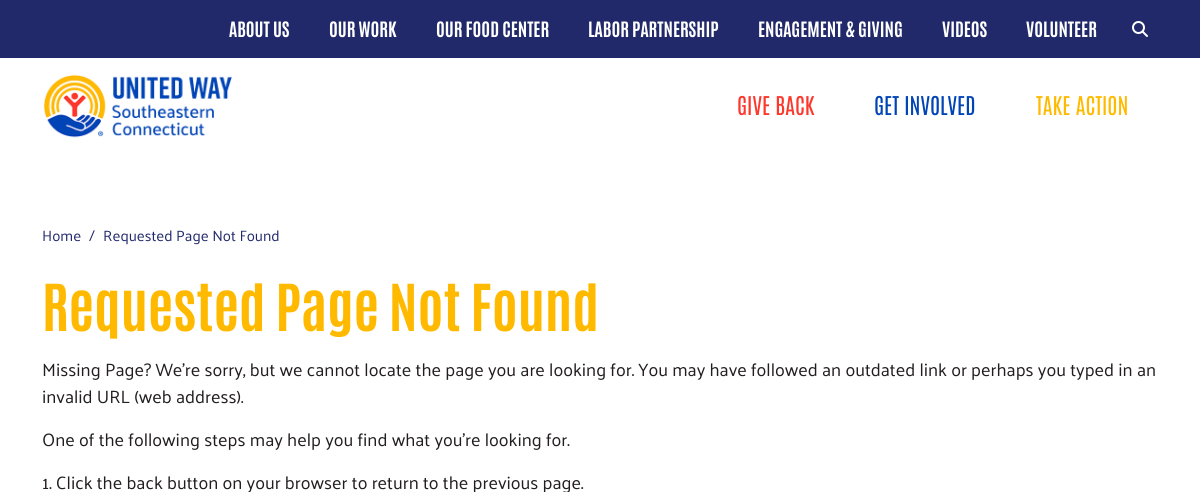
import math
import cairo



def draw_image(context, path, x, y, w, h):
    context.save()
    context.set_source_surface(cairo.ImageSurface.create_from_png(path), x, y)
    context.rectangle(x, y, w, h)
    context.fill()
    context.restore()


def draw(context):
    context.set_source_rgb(1, 1, 1)
    context.paint()
    context.set_source_rgb(33 / 255, 41 / 255, 107 / 255)
    context.rectangle(0, 0, 1200, 58)
    context.fill()
    draw_image(context, "images/1.png", 1132, 21, 16, 16)
    draw_image(context, "images/2.png", 43, 74, 189, 64)
    context.select_font_face("Antonio", cairo.FontSlant.NORMAL, cairo.FontWeight.BOLD)
    context.set_font_size(18)
    context.set_source_rgb(1, 1, 1)
    context.move_to(229, 37)
    context.show_text("ABOUT US")
    context.move_to(329, 37)
    context.show_text("OUR WORK")
    context.move_to(436, 37)
    context.show_text("OUR FOOD CENTER")
    context.move_to(588, 37)
    context.show_text("LABOR PARTNERSHIP")
    context.move_to(758, 37)
    context.show_text("ENGAGEMENT & GIVING")
    context.move_to(942, 37)
    context.show_text("VIDEOS")
    context.move_to(1026, 37)
    context.show_text("VOLUNTEER")
    context.select_font_face("Antonio")
    context.set_font_size(22)
    context.set_source_rgb(253 / 255, 55 / 255, 44 / 255)
    context.move_to(737, 115)
    context.show_text("GIVE BACK")
    context.set_source_rgb(0, 68 / 255, 181 / 255)
    context.move_to(874, 115)
    context.show_text("GET INVOLVED")
    context.set_source_rgb(1, 186 / 255, 0)
    context.move_to(1036, 115)
    context.show_text("TAKE ACTION")
    context.select_font_face("Palanquin")
    context.set_font_size(15)
    context.set_source_rgb(33 / 255, 41 / 255, 107 / 255)
    context.move_to(42, 241)
    context.show_text("Home")
    context.move_to(89, 241)
    context.show_text("/")
    context.move_to(103, 241)
    context.show_text("Requested Page Not Found")
    context.select_font_face("Antonio", cairo.FontSlant.NORMAL, cairo.FontWeight.BOLD)
    context.set_font_size(55)
    context.set_source_rgb(1, 186 / 255, 0)
    context.move_to(42, 331)
    context.show_text("Requested Page Not Found")
    context.select_font_face("Palanquin")
    context.set_font_size(18)
    context.set_source_rgb(34 / 255, 30 / 255, 31 / 255)
    context.move_to(42, 376)
    context.show_text("Missing Page? We're sorry, but we cannot locate the page you are looking for. You may have followed an outdated link or perhaps you typed in an")
    context.move_to(42, 403)
    context.show_text("invalid URL (web address).")
    context.move_to(42, 446)
    context.show_text("One of the following steps may help you find what you're looking for.")
    context.move_to(42, 489)
    context.show_text("1. Click the back button on your browser to return to the previous page.")


surface = cairo.ImageSurface(cairo.Format.RGB24, 1200, 492)
context = cairo.Context(surface)
options = cairo.FontOptions()
options.set_hint_metrics(cairo.HintMetrics.OFF)
options.set_hint_style(cairo.HintStyle.NONE)
context.set_font_options(options)
context.set_miter_limit(4)
draw(context)
surface.write_to_png("out.png")
